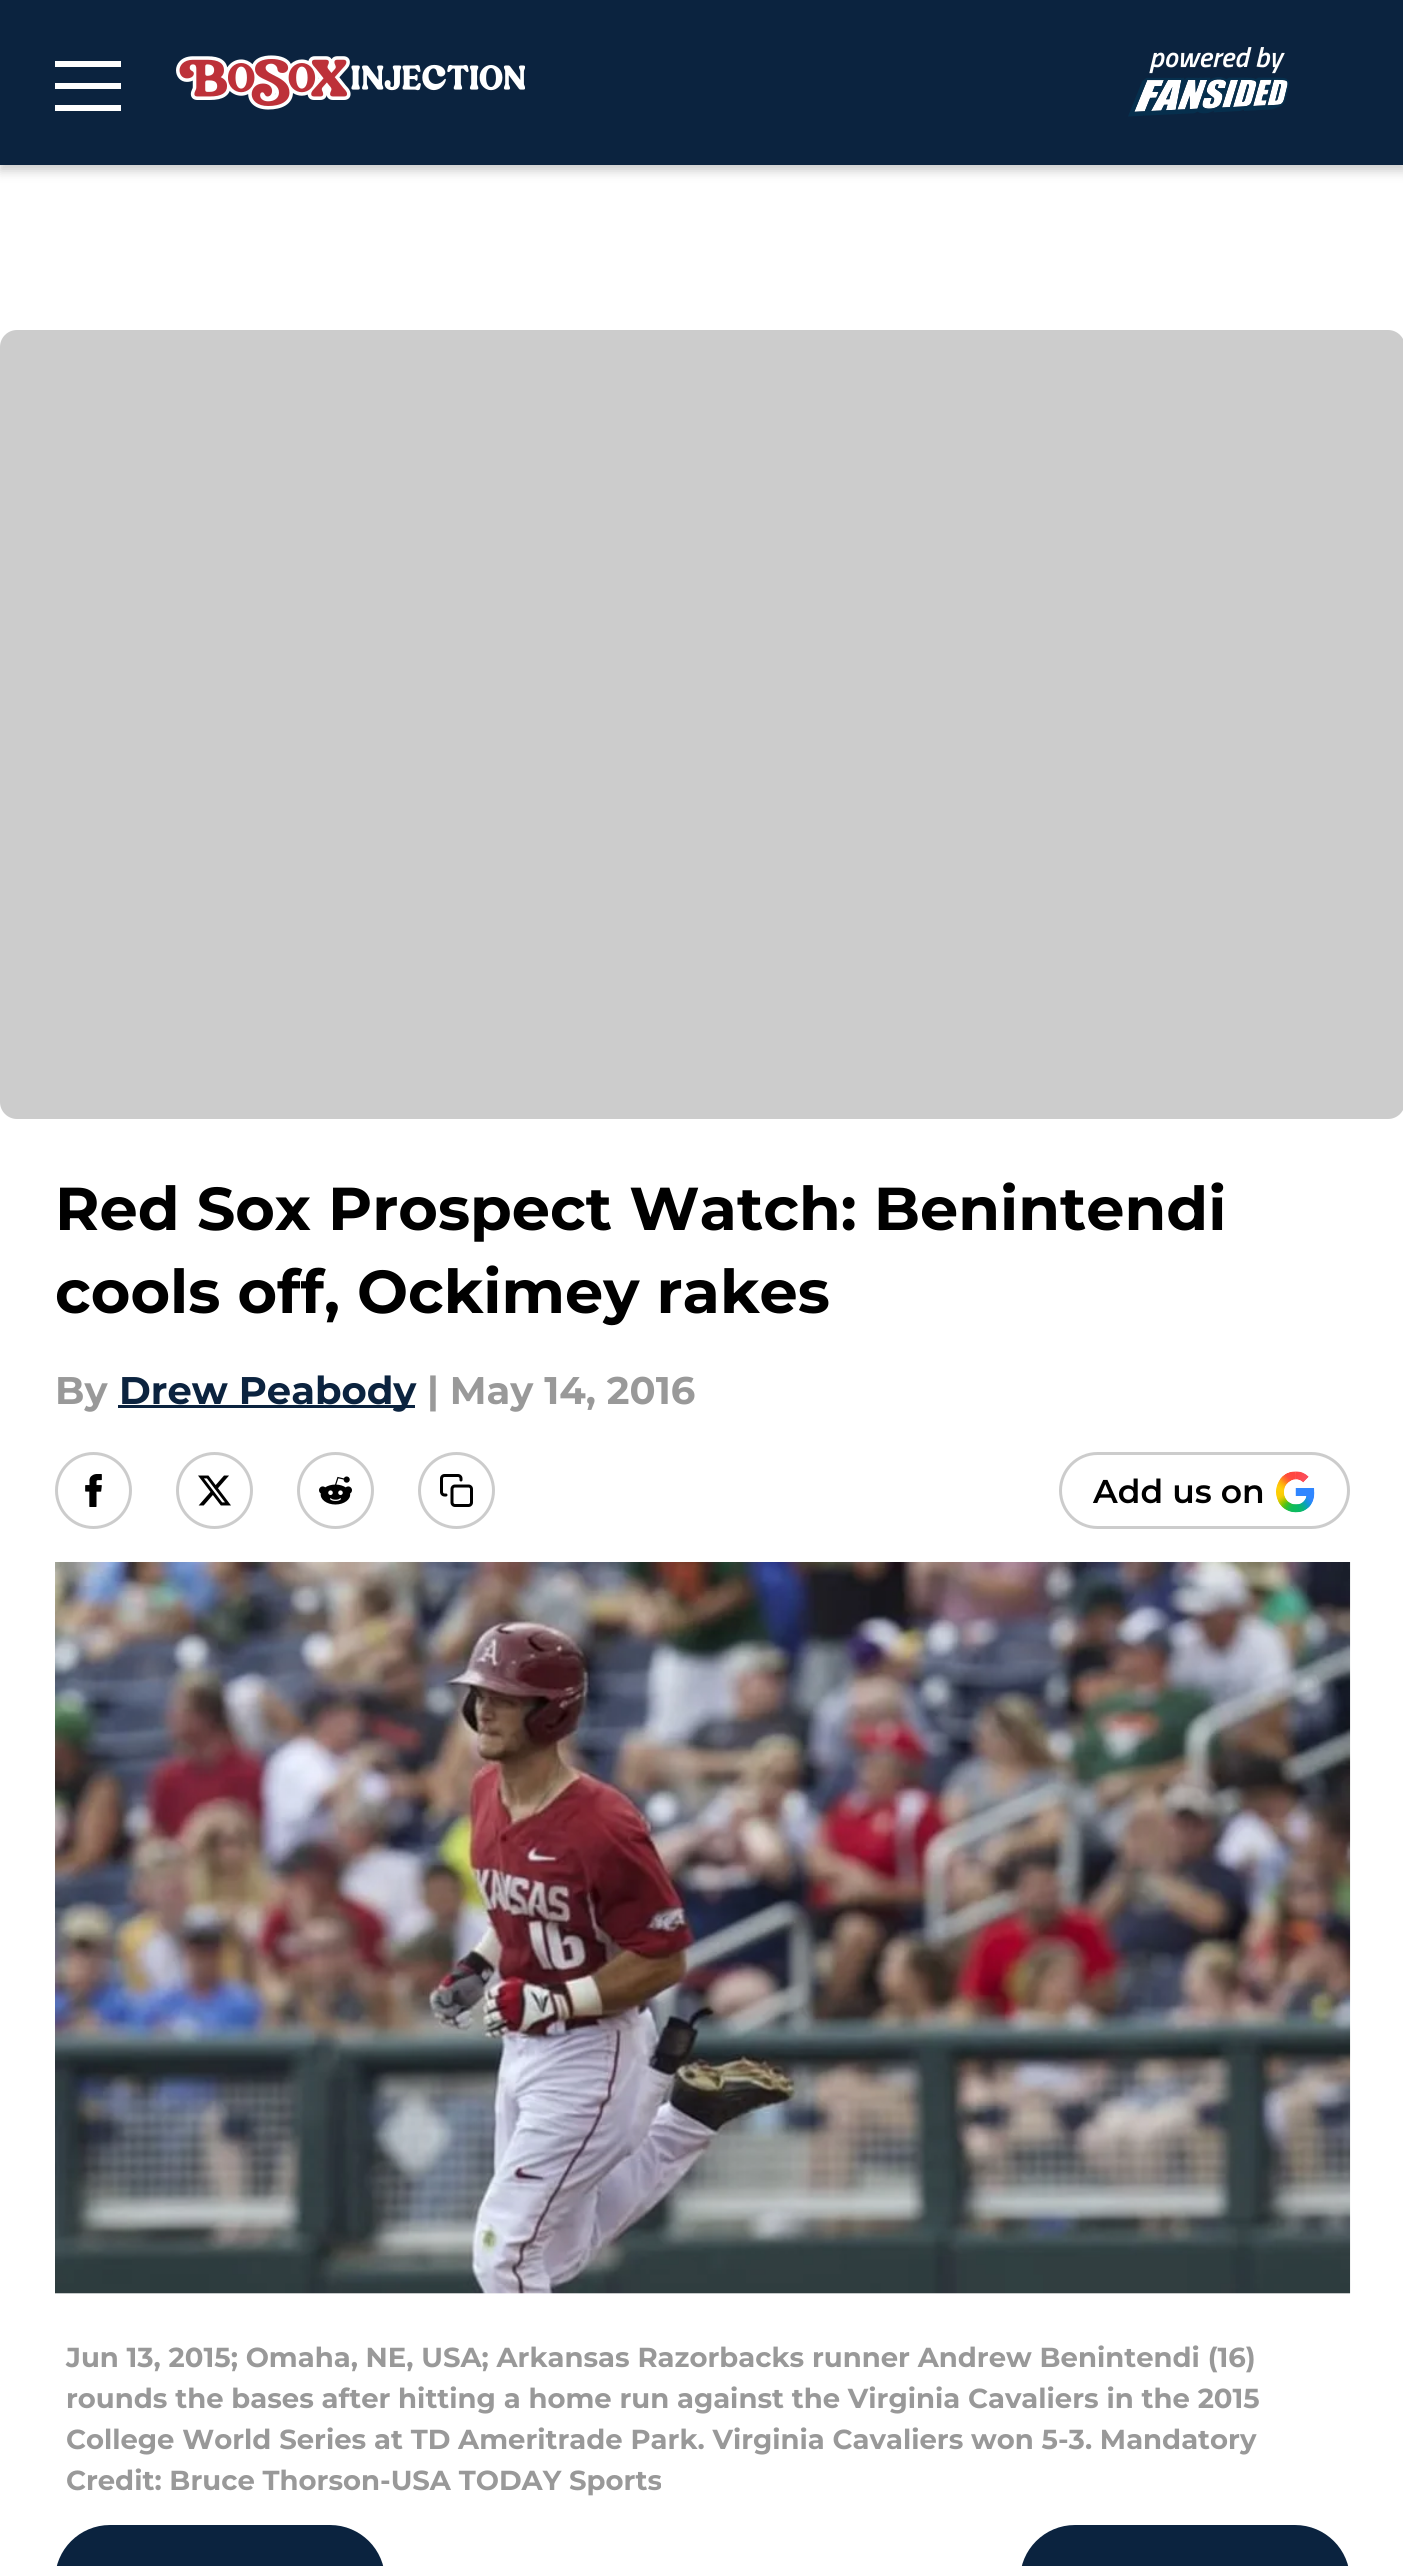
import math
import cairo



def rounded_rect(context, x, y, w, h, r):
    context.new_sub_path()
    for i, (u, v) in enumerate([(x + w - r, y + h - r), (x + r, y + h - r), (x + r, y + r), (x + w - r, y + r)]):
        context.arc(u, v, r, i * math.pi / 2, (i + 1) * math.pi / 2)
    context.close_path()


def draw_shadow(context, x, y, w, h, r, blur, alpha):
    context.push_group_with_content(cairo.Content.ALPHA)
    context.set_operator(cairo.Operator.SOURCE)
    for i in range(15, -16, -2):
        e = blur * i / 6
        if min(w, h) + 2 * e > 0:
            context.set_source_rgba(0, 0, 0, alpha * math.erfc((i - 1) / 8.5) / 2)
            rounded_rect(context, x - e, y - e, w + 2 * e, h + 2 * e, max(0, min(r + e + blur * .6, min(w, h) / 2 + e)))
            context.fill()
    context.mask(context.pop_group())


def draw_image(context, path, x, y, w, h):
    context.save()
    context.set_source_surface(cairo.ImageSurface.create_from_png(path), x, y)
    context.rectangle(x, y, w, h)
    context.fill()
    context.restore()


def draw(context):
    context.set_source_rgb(1, 1, 1)
    context.paint()
    context.set_source_rgb(0, 0, 0)
    draw_shadow(context, 0, 6, 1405, 165, 0, 5.5, 0.2)
    context.set_source_rgb(11 / 255, 35 / 255, 63 / 255)
    context.rectangle(0, 0, 1403, 165)
    context.fill()
    context.set_source_rgb(1, 1, 1)
    context.rectangle(55, 61, 66, 6)
    context.fill()
    context.rectangle(55, 83, 66, 6)
    context.fill()
    context.rectangle(55, 105, 66, 6)
    context.fill()
    draw_image(context, "images/1.png", 176, 55, 349, 55)
    draw_image(context, "images/2.png", 1128, 47, 161, 70)
    context.set_source_rgb(204 / 255, 204 / 255, 204 / 255)
    rounded_rect(context, 0, 330, 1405, 789, 17)
    context.fill()
    context.set_source_rgb(11 / 255, 35 / 255, 63 / 255)
    context.rectangle(118, 1405, 297, 3)
    context.fill()
    context.arc(93.5, 1490.5, 37, 0, 2 * math.pi)
    context.set_source_rgb(204 / 255, 204 / 255, 204 / 255)
    context.set_line_width(3)
    context.stroke()
    draw_image(context, "images/3.png", 85, 1474, 17, 33)
    context.arc(214.5, 1490.5, 37, 0, 2 * math.pi)
    context.stroke()
    draw_image(context, "images/4.png", 198, 1475, 33, 31)
    context.arc(335.5, 1490.5, 37, 0, 2 * math.pi)
    context.stroke()
    draw_image(context, "images/5.png", 319, 1476, 33, 29)
    context.arc(456.5, 1490.5, 37, 0, 2 * math.pi)
    context.stroke()
    draw_image(context, "images/6.png", 440, 1474, 33, 33)
    rounded_rect(context, 1060.5, 1453.5, 288, 74, 37)
    context.stroke()
    draw_image(context, "images/7.png", 1276, 1471, 39, 42)
    context.set_source_rgb(247 / 255, 247 / 255, 247 / 255)
    context.rectangle(55, 2293, 1295, 1)
    context.fill()
    draw_image(context, "images/8.png", 55, 1562, 1296, 732)
    context.set_source_rgb(11 / 255, 35 / 255, 63 / 255)
    rounded_rect(context, 55, 2525, 330, 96, 55)
    context.fill()
    rounded_rect(context, 1020, 2525, 330, 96, 55)
    context.fill()
    context.select_font_face("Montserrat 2 Thin")
    context.set_font_size(60.5)
    context.set_source_rgb(0, 0, 0)
    context.move_to(55, 1230)
    context.show_text("Red Sox Prospect Watch: Benintendi")
    context.move_to(55, 1313)
    context.show_text("cools off, Ockimey rakes")
    context.set_font_size(38.5)
    context.set_source_rgb(153 / 255, 153 / 255, 153 / 255)
    context.move_to(55, 1404)
    context.show_text("By")
    context.set_source_rgb(11 / 255, 35 / 255, 63 / 255)
    context.move_to(119, 1404)
    context.show_text("Drew Peabody")
    context.set_source_rgb(153 / 255, 153 / 255, 153 / 255)
    context.move_to(427, 1404)
    context.show_text("| May 14, 2016")
    context.select_font_face("Montserrat Thin")
    context.set_font_size(33)
    context.set_source_rgb(0, 0, 0)
    context.move_to(1093, 1503)
    context.show_text("Add us on")
    context.select_font_face("Montserrat 2 Thin")
    context.set_font_size(27.5)
    context.set_source_rgb(153 / 255, 153 / 255, 153 / 255)
    context.move_to(66, 2367)
    context.show_text("Jun 13, 2015; Omaha, NE, USA; Arkansas Razorbacks runner Andrew Benintendi (16)")
    context.move_to(66, 2408)
    context.show_text("rounds the bases after hitting a home run against the Virginia Cavaliers in the 2015")
    context.move_to(66, 2449)
    context.show_text("College World Series at TD Ameritrade Park. Virginia Cavaliers won 5-3. Mandatory")
    context.move_to(66, 2490)
    context.show_text("Credit: Bruce Thorson-USA TODAY Sports")


surface = cairo.ImageSurface(cairo.Format.RGB24, 1403, 2566)
context = cairo.Context(surface)
options = cairo.FontOptions()
options.set_hint_metrics(cairo.HintMetrics.OFF)
options.set_hint_style(cairo.HintStyle.NONE)
context.set_font_options(options)
context.set_miter_limit(4)
draw(context)
surface.write_to_png("out.png")
